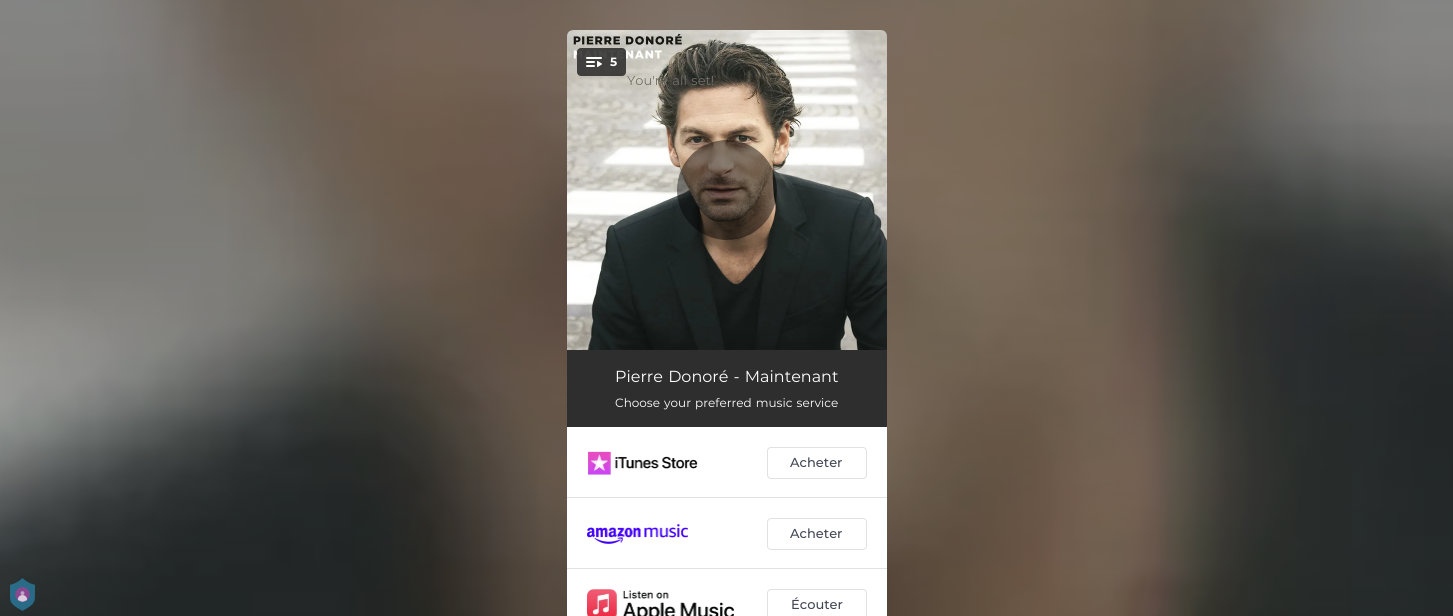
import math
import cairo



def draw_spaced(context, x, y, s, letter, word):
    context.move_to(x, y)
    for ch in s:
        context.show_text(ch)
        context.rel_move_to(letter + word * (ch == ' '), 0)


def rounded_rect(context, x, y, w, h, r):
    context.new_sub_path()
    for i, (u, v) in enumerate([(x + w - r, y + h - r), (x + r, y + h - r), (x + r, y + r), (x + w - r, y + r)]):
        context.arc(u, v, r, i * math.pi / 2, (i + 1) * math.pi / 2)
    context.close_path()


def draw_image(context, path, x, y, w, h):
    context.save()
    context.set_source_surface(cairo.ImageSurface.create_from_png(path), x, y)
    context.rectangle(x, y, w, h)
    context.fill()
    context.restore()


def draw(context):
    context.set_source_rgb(1, 1, 1)
    context.paint()
    draw_image(context, "images/2.png", 0, 0, 1453, 616)
    draw_image(context, "images/1.png", 10, 578, 25, 33)
    draw_image(context, "images/3.png", 567, 30, 320, 320)
    context.set_source_rgba(40 / 255, 40 / 255, 40 / 255, 0.85)
    rounded_rect(context, 577, 48, 49, 28, 4)
    context.fill()
    draw_image(context, "images/4.png", 586, 57, 16, 10)
    context.set_source_rgba(0, 0, 0, 0.45)
    context.arc(727, 190, 50, 0, 2 * math.pi)
    context.fill()
    context.set_source_rgb(46 / 255, 46 / 255, 46 / 255)
    context.rectangle(567, 350, 320, 77)
    context.fill()
    context.set_source_rgb(1, 1, 1)
    context.rectangle(567, 427, 320, 189)
    context.fill()
    context.set_source_rgb(225 / 255, 225 / 255, 228 / 255)
    context.rectangle(567, 497, 320, 1)
    context.fill()
    draw_image(context, "images/5.png", 588, 451, 110, 24)
    rounded_rect(context, 767.5, 447.5, 99, 31, 3.5)
    context.set_line_width(1)
    context.stroke()
    context.rectangle(567, 568, 320, 1)
    context.fill()
    draw_image(context, "images/6.png", 587, 524, 101, 20)
    rounded_rect(context, 767.5, 518.5, 99, 31, 3.5)
    context.stroke()
    draw_image(context, "images/7.png", 587, 589, 147, 27)
    rounded_rect(context, 767.5, 589.5, 99, 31, 3.5)
    context.stroke()
    context.select_font_face("Montserrat", cairo.FontSlant.NORMAL, cairo.FontWeight.BOLD)
    context.set_font_size(12)
    context.set_source_rgb(1, 1, 1)
    context.move_to(610, 66)
    context.show_text("5")
    context.select_font_face("Montserrat")
    context.set_font_size(13)
    context.set_source_rgb(114 / 255, 112 / 255, 104 / 255)
    draw_spaced(context, 627, 85, "You're all set!", 0, 1)
    context.set_font_size(16)
    context.set_source_rgb(1, 1, 1)
    draw_spaced(context, 615, 382, "Pierre Donoré - Maintenant", 0, 1)
    context.set_font_size(12)
    draw_spaced(context, 615, 407, "Choose your preferred music service", 0, 1)
    context.select_font_face("Montserrat Medium")
    context.set_font_size(13)
    context.set_source_rgb(65 / 255, 71 / 255, 84 / 255)
    context.move_to(790, 467)
    context.show_text("Acheter")
    context.move_to(790, 538)
    context.show_text("Acheter")
    context.move_to(791, 609)
    context.show_text("Écouter")


surface = cairo.ImageSurface(cairo.Format.RGB24, 1453, 616)
context = cairo.Context(surface)
options = cairo.FontOptions()
options.set_hint_metrics(cairo.HintMetrics.OFF)
options.set_hint_style(cairo.HintStyle.NONE)
context.set_font_options(options)
context.set_miter_limit(4)
draw(context)
surface.write_to_png("out.png")
